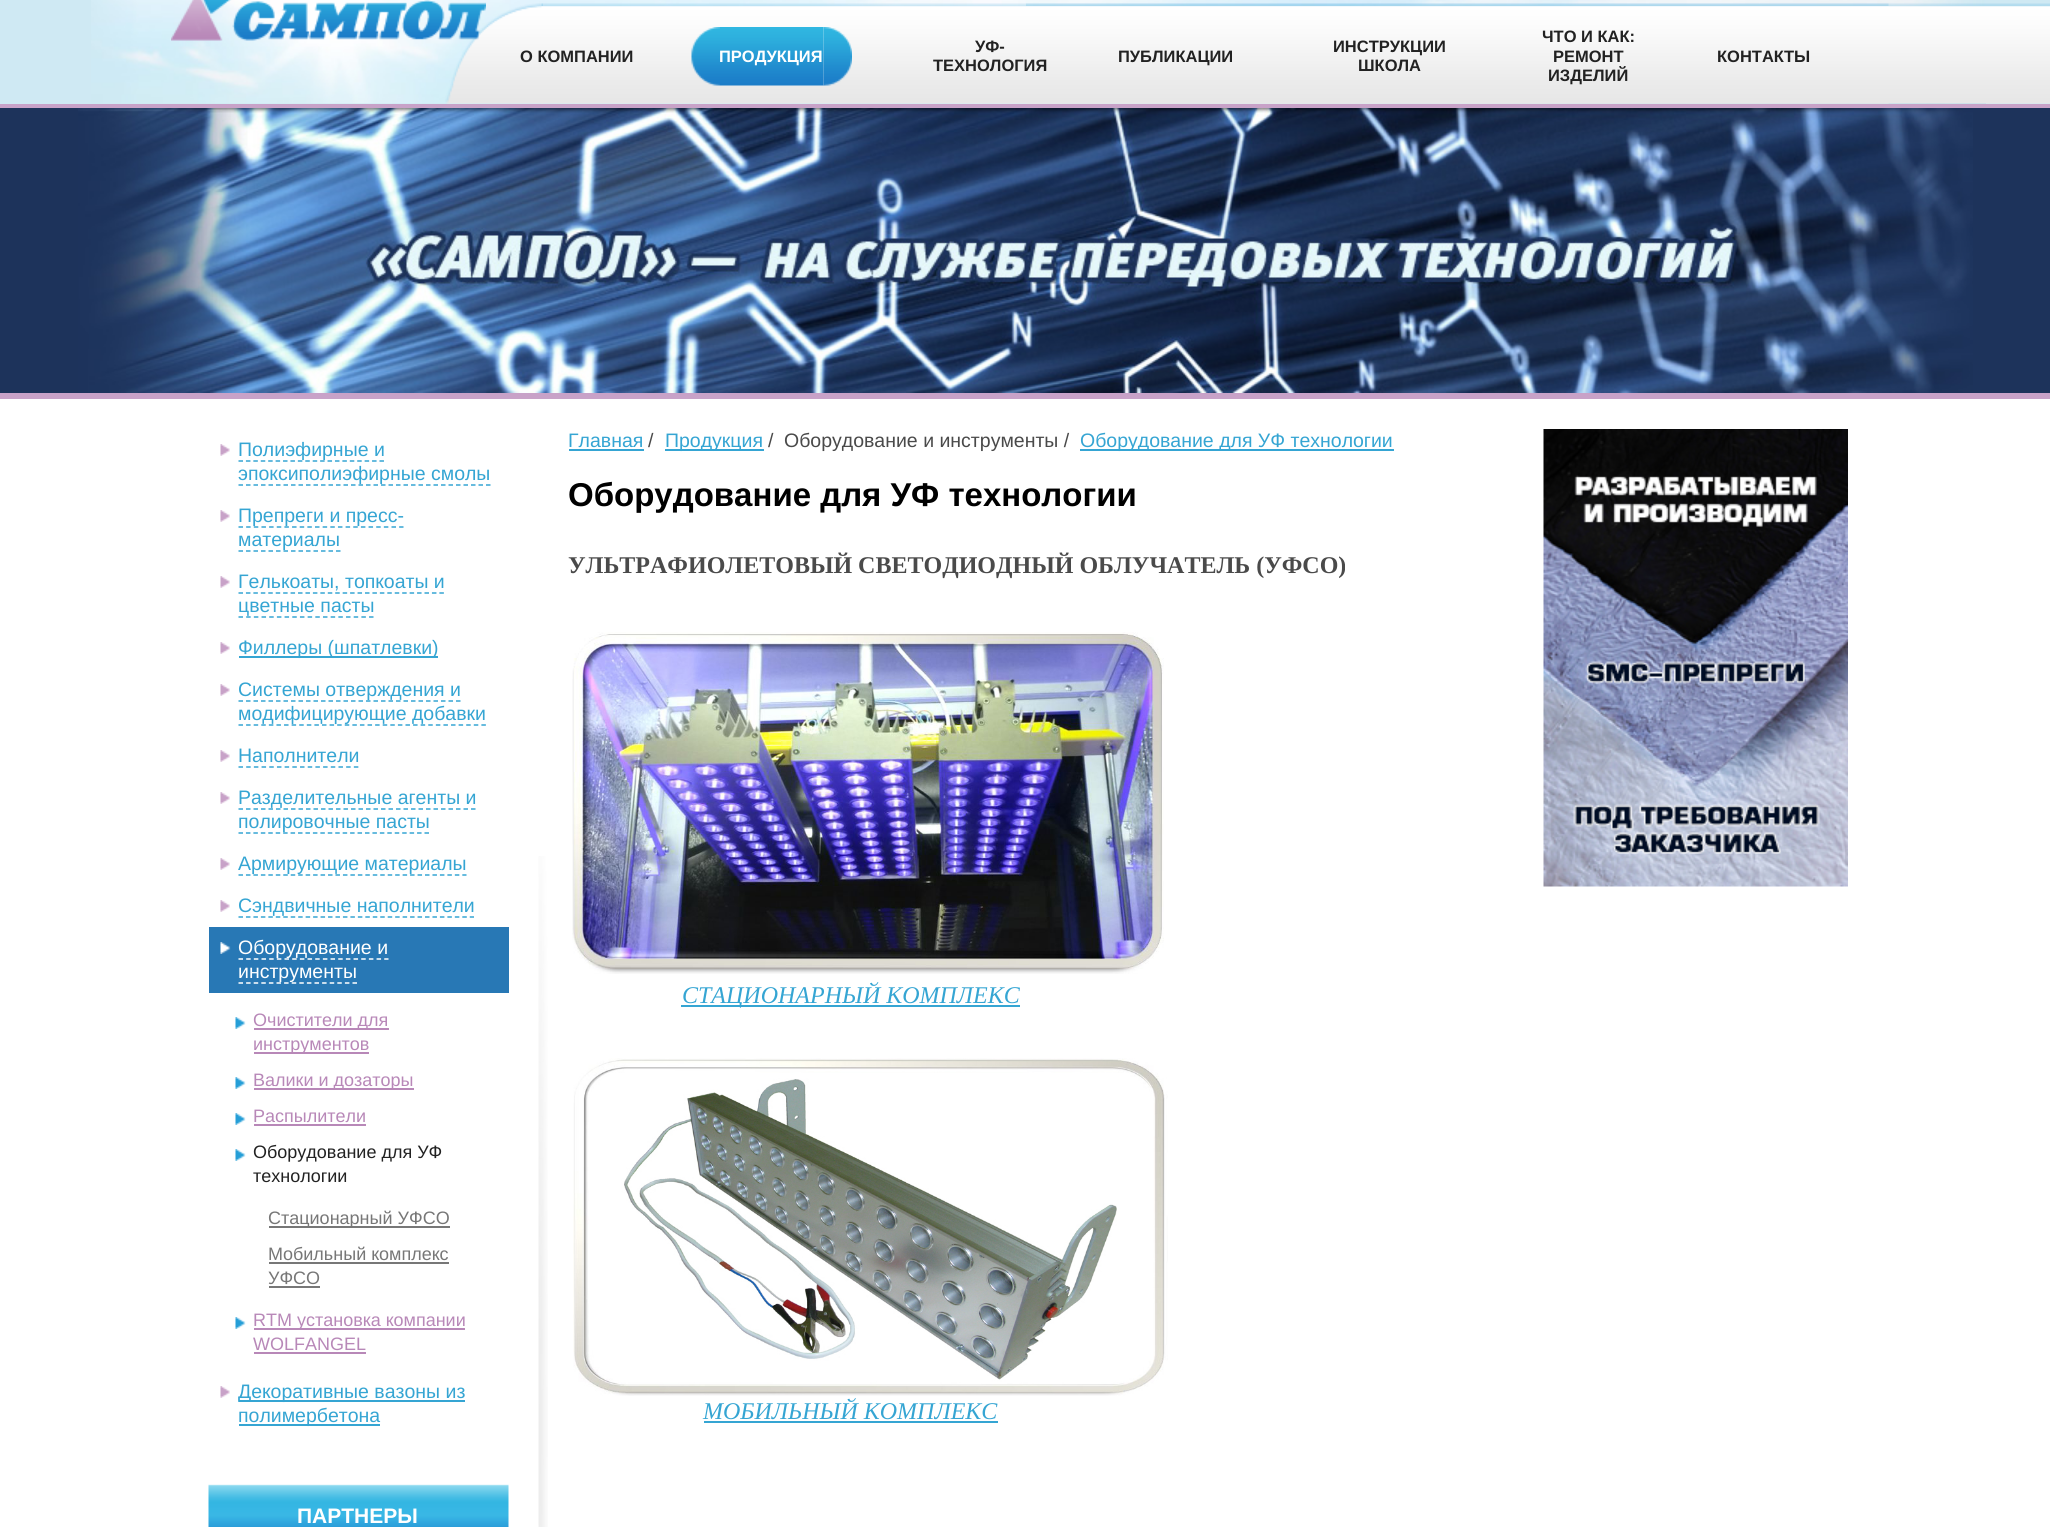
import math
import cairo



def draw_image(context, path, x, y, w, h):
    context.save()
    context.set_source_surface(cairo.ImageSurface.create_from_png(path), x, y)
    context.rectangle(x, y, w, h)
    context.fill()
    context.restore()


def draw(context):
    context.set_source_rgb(1, 1, 1)
    context.paint()
    context.set_source_rgb(207 / 255, 233 / 255, 243 / 255)
    context.rectangle(0, 0, 2050, 104)
    context.fill()
    draw_image(context, "images/1.png", 91, 0, 1895, 104)
    draw_image(context, "images/2.png", 1026, 3, 1024, 101)
    draw_image(context, "images/4.png", 445, 3, 98, 101)
    draw_image(context, "images/3.png", 171, 0, 315, 41)
    draw_image(context, "images/5.png", 541, 3, 1348, 101)
    draw_image(context, "images/6.png", 691, 27, 29, 59)
    draw_image(context, "images/7.png", 720, 27, 104, 59)
    draw_image(context, "images/8.png", 823, 27, 29, 59)
    context.set_source_rgb(200 / 255, 162 / 255, 200 / 255)
    context.rectangle(0, 104, 2050, 4)
    context.fill()
    context.set_source_rgb(29 / 255, 51 / 255, 91 / 255)
    context.rectangle(0, 108, 2050, 285)
    context.fill()
    draw_image(context, "images/9.png", 78, 108, 1895, 285)
    context.set_source_rgb(200 / 255, 162 / 255, 200 / 255)
    context.rectangle(0, 393, 2050, 6)
    context.fill()
    draw_image(context, "images/10.png", 220, 444, 10, 12)
    context.new_path()
    context.move_to(238.5, 461)
    context.line_to(384, 461)
    context.set_source_rgb(53 / 255, 165 / 255, 211 / 255)
    context.set_line_width(1.5)
    context.set_dash([4.5, 2.92])
    context.stroke()
    context.new_path()
    context.move_to(238.5, 485)
    context.line_to(490.5, 485)
    context.set_dash([4.5, 3])
    context.stroke()
    draw_image(context, "images/10.png", 220, 510, 10, 12)
    context.new_path()
    context.move_to(238.5, 527)
    context.line_to(403.5, 527)
    context.set_dash([4.5, 3.15])
    context.stroke()
    context.new_path()
    context.move_to(238.5, 551)
    context.line_to(340.5, 551)
    context.set_dash([4.5, 3])
    context.stroke()
    draw_image(context, "images/10.png", 220, 576, 10, 12)
    context.new_path()
    context.move_to(238.5, 593)
    context.line_to(444, 593)
    context.set_dash([4.5, 2.94])
    context.stroke()
    context.new_path()
    context.move_to(238.5, 617)
    context.line_to(373.5, 617)
    context.set_dash([4.5, 3.18])
    context.stroke()
    draw_image(context, "images/10.png", 220, 642, 10, 12)
    context.rectangle(239, 656, 199, 2)
    context.fill()
    draw_image(context, "images/10.png", 220, 684, 10, 12)
    context.new_path()
    context.move_to(238.5, 701)
    context.line_to(460.5, 701)
    context.set_dash([4.5, 3])
    context.stroke()
    context.new_path()
    context.move_to(238.5, 725)
    context.line_to(486, 725)
    context.set_dash([4.5, 3.09])
    context.stroke()
    draw_image(context, "images/10.png", 220, 750, 10, 12)
    context.new_path()
    context.move_to(238.5, 767)
    context.line_to(358.5, 767)
    context.set_dash([4.5, 3.19])
    context.stroke()
    draw_image(context, "images/10.png", 220, 792, 10, 12)
    context.new_path()
    context.move_to(238.5, 809)
    context.line_to(475.5, 809)
    context.set_dash([4.5, 3])
    context.stroke()
    context.new_path()
    context.move_to(238.5, 833)
    context.line_to(429, 833)
    context.set_dash([4.5, 2.94])
    context.stroke()
    draw_image(context, "images/10.png", 220, 858, 10, 12)
    context.new_path()
    context.move_to(238.5, 875)
    context.line_to(466.5, 875)
    context.set_dash([4.5, 2.96])
    context.stroke()
    draw_image(context, "images/10.png", 220, 900, 10, 12)
    context.new_path()
    context.move_to(238.5, 917)
    context.line_to(474, 917)
    context.stroke()
    context.set_source_rgb(40 / 255, 120 / 255, 181 / 255)
    context.rectangle(209, 927, 300, 66)
    context.fill()
    draw_image(context, "images/11.png", 220, 942, 11, 12)
    context.new_path()
    context.move_to(238.5, 959)
    context.line_to(388.5, 959)
    context.set_source_rgb(1, 1, 1)
    context.set_dash([4.5, 3.17])
    context.stroke()
    context.new_path()
    context.move_to(238.5, 983)
    context.line_to(357, 983)
    context.set_dash([4.5, 3.1])
    context.stroke()
    draw_image(context, "images/12.png", 235, 1017, 11, 12)
    context.set_source_rgb(184 / 255, 136 / 255, 184 / 255)
    context.rectangle(254, 1028, 135, 2)
    context.fill()
    context.rectangle(254, 1052, 115, 2)
    context.fill()
    draw_image(context, "images/12.png", 235, 1077, 11, 12)
    context.rectangle(254, 1088, 160, 2)
    context.fill()
    draw_image(context, "images/12.png", 235, 1113, 11, 12)
    context.rectangle(254, 1124, 112, 2)
    context.fill()
    draw_image(context, "images/12.png", 235, 1149, 11, 12)
    context.set_source_rgb(119 / 255, 119 / 255, 119 / 255)
    context.rectangle(269, 1226, 181, 2)
    context.fill()
    context.rectangle(269, 1262, 180, 2)
    context.fill()
    context.rectangle(269, 1286, 51, 2)
    context.fill()
    draw_image(context, "images/12.png", 235, 1317, 11, 12)
    context.set_source_rgb(184 / 255, 136 / 255, 184 / 255)
    context.rectangle(254, 1328, 211, 2)
    context.fill()
    context.rectangle(254, 1352, 112, 2)
    context.fill()
    draw_image(context, "images/10.png", 220, 1386, 10, 12)
    context.set_source_rgb(53 / 255, 165 / 255, 211 / 255)
    context.rectangle(239, 1400, 226, 2)
    context.fill()
    context.rectangle(239, 1424, 141, 2)
    context.fill()
    draw_image(context, "images/13.png", 208, 1484, 301, 43)
    draw_image(context, "images/14.png", 538, 856, 10, 671)
    context.rectangle(569, 449, 75, 2)
    context.fill()
    context.rectangle(665, 449, 99, 2)
    context.fill()
    context.rectangle(1080, 449, 314, 2)
    context.fill()
    draw_image(context, "images/15.png", 572, 632, 592, 342)
    context.rectangle(681, 1005, 339, 2)
    context.fill()
    draw_image(context, "images/16.png", 573, 1058, 595, 338)
    context.rectangle(704, 1421, 294, 2)
    context.fill()
    draw_image(context, "images/17.png", 1543, 429, 305, 458)
    context.select_font_face("Liberation Sans", cairo.FontSlant.NORMAL, cairo.FontWeight.BOLD)
    context.set_font_size(16.5)
    context.set_source_rgb(34 / 255, 34 / 255, 34 / 255)
    context.move_to(520, 62)
    context.show_text("О КОМПАНИИ")
    context.set_source_rgb(1, 1, 1)
    context.move_to(719, 62)
    context.show_text("ПРОДУКЦИЯ")
    context.set_source_rgb(34 / 255, 34 / 255, 34 / 255)
    context.move_to(975, 52)
    context.show_text("УФ-")
    context.move_to(933, 71)
    context.show_text("ТЕХНОЛОГИЯ")
    context.move_to(1118, 62)
    context.show_text("ПУБЛИКАЦИИ")
    context.move_to(1333, 52)
    context.show_text("ИНСТРУКЦИИ")
    context.move_to(1358, 71)
    context.show_text("ШКОЛА")
    context.move_to(1542, 42)
    context.show_text("ЧТО И КАК:")
    context.move_to(1553, 62)
    context.show_text("РЕМОНТ")
    context.move_to(1548, 81)
    context.show_text("ИЗДЕЛИЙ")
    context.move_to(1717, 62)
    context.show_text("КОНТАКТЫ")
    context.select_font_face("Liberation Sans")
    context.set_font_size(19.5)
    context.set_source_rgb(53 / 255, 165 / 255, 211 / 255)
    context.move_to(238, 456)
    context.show_text("Полиэфирные и")
    context.move_to(238, 480)
    context.show_text("эпоксиполиэфирные смолы")
    context.move_to(238, 522)
    context.show_text("Препреги и пресс-")
    context.move_to(238, 546)
    context.show_text("материалы")
    context.move_to(238, 588)
    context.show_text("Гелькоаты, топкоаты и")
    context.move_to(238, 612)
    context.show_text("цветные пасты")
    context.move_to(238, 654)
    context.show_text("Филлеры (шпатлевки)")
    context.move_to(238, 696)
    context.show_text("Системы отверждения и")
    context.move_to(238, 720)
    context.show_text("модифицирующие добавки")
    context.move_to(238, 762)
    context.show_text("Наполнители")
    context.move_to(238, 804)
    context.show_text("Разделительные агенты и")
    context.move_to(238, 828)
    context.show_text("полировочные пасты")
    context.move_to(238, 870)
    context.show_text("Армирующие материалы")
    context.move_to(238, 912)
    context.show_text("Сэндвичные наполнители")
    context.set_source_rgb(1, 1, 1)
    context.move_to(238, 954)
    context.show_text("Оборудование и")
    context.move_to(238, 978)
    context.show_text("инструменты")
    context.set_font_size(18)
    context.set_source_rgb(184 / 255, 136 / 255, 184 / 255)
    context.move_to(253, 1026)
    context.show_text("Очистители для")
    context.move_to(253, 1050)
    context.show_text("инструментов")
    context.move_to(253, 1086)
    context.show_text("Валики и дозаторы")
    context.move_to(253, 1122)
    context.show_text("Распылители")
    context.set_source_rgb(34 / 255, 34 / 255, 34 / 255)
    context.move_to(253, 1158)
    context.show_text("Оборудование для УФ")
    context.move_to(253, 1182)
    context.show_text("технологии")
    context.set_source_rgb(119 / 255, 119 / 255, 119 / 255)
    context.move_to(268, 1224)
    context.show_text("Стационарный УФСО")
    context.move_to(268, 1260)
    context.show_text("Мобильный комплекс")
    context.move_to(268, 1284)
    context.show_text("УФСО")
    context.set_source_rgb(184 / 255, 136 / 255, 184 / 255)
    context.move_to(253, 1326)
    context.show_text("RTM установка компании")
    context.move_to(253, 1350)
    context.show_text("WOLFANGEL")
    context.set_font_size(19.5)
    context.set_source_rgb(53 / 255, 165 / 255, 211 / 255)
    context.move_to(238, 1398)
    context.show_text("Декоративные вазоны из")
    context.move_to(238, 1422)
    context.show_text("полимербетона")
    context.select_font_face("Liberation Sans", cairo.FontSlant.NORMAL, cairo.FontWeight.BOLD)
    context.set_font_size(21)
    context.set_source_rgb(1, 1, 1)
    context.move_to(297, 1523)
    context.show_text("ПАРТНЕРЫ")
    context.select_font_face("Liberation Sans")
    context.set_font_size(19.5)
    context.set_source_rgb(53 / 255, 165 / 255, 211 / 255)
    context.move_to(568, 447)
    context.show_text("Главная")
    context.set_source_rgb(74 / 255, 74 / 255, 74 / 255)
    context.move_to(648, 447)
    context.show_text("/")
    context.set_source_rgb(53 / 255, 165 / 255, 211 / 255)
    context.move_to(665, 447)
    context.show_text("Продукция")
    context.set_source_rgb(74 / 255, 74 / 255, 74 / 255)
    context.move_to(768, 447)
    context.show_text("/")
    context.move_to(784, 447)
    context.show_text("Оборудование и инструменты /")
    context.set_source_rgb(53 / 255, 165 / 255, 211 / 255)
    context.move_to(1080, 447)
    context.show_text("Оборудование для УФ технологии")
    context.select_font_face("Liberation Sans", cairo.FontSlant.NORMAL, cairo.FontWeight.BOLD)
    context.set_font_size(33)
    context.set_source_rgb(0, 0, 0)
    context.move_to(568, 506)
    context.show_text("Оборудование для УФ технологии")
    context.select_font_face("Liberation Serif", cairo.FontSlant.NORMAL, cairo.FontWeight.BOLD)
    context.set_font_size(24)
    context.set_source_rgb(74 / 255, 74 / 255, 74 / 255)
    context.move_to(568, 573)
    context.show_text("УЛЬТРАФИОЛЕТОВЫЙ СВЕТОДИОДНЫЙ ОБЛУЧАТЕЛЬ (УФСО)")
    context.select_font_face("Liberation Serif", cairo.FontSlant.ITALIC)
    context.set_source_rgb(53 / 255, 165 / 255, 211 / 255)
    context.move_to(682, 1003)
    context.show_text("СТАЦИОНАРНЫЙ КОМПЛЕКС")
    context.move_to(703, 1419)
    context.show_text("МОБИЛЬНЫЙ КОМПЛЕКС")


surface = cairo.ImageSurface(cairo.Format.RGB24, 2050, 1527)
context = cairo.Context(surface)
options = cairo.FontOptions()
options.set_hint_metrics(cairo.HintMetrics.OFF)
options.set_hint_style(cairo.HintStyle.NONE)
context.set_font_options(options)
context.set_miter_limit(4)
draw(context)
surface.write_to_png("out.png")
